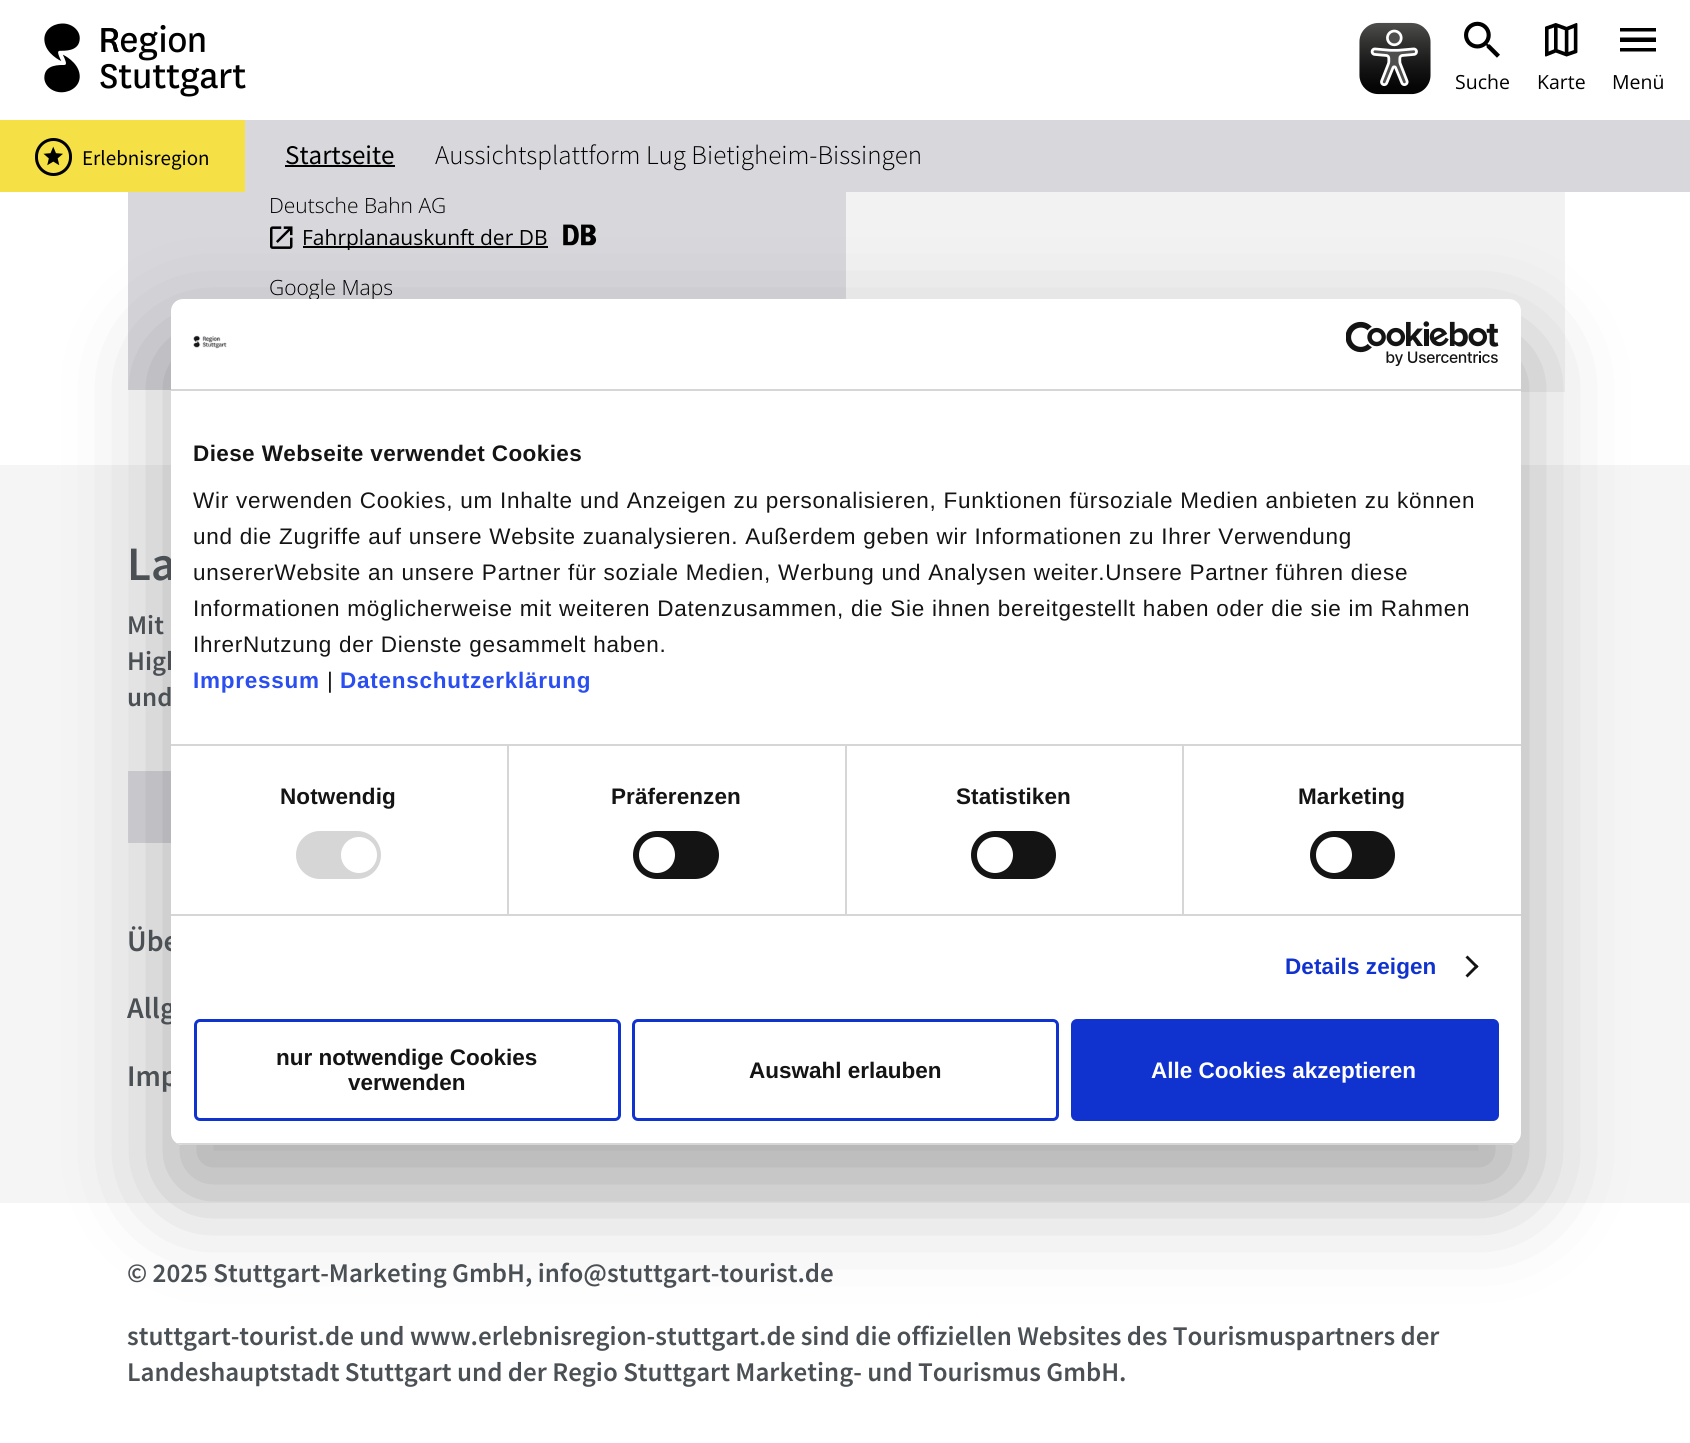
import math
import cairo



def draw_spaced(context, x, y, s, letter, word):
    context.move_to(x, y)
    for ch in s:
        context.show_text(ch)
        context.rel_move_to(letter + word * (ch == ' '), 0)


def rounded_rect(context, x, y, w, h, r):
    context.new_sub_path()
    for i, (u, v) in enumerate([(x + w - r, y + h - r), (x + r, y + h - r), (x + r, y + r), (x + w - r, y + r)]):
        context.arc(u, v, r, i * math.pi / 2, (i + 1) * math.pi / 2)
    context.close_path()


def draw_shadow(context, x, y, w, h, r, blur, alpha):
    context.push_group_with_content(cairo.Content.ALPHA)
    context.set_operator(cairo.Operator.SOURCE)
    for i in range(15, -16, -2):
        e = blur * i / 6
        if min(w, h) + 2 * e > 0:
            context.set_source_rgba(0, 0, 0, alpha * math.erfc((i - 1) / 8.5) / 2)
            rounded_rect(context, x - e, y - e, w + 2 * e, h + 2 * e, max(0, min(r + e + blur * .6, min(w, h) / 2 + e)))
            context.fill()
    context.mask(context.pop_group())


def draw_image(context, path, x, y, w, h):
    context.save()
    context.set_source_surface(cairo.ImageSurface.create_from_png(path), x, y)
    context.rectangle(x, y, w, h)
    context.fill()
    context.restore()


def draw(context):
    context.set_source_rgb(1, 1, 1)
    context.paint()
    context.rectangle(129, -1, 1433, 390)
    context.set_source_rgb(215 / 255, 215 / 255, 220 / 255)
    context.stroke()
    context.set_source_rgb(1, 1, 1)
    context.rectangle(128, 0, 1435, 120)
    context.fill()
    draw_image(context, "images/1.png", 44, 23, 202, 74)
    draw_image(context, "images/2.png", 1359, 22, 72, 73)
    draw_image(context, "images/3.png", 1464, 21, 36, 37)
    draw_image(context, "images/4.png", 1545, 23, 33, 34)
    context.set_source_rgb(0, 0, 0)
    context.new_path()
    context.move_to(1620, 51.5)
    context.line_to(1656, 51.5)
    context.line_to(1656, 48)
    context.line_to(1620, 48)
    context.close_path()
    context.move_to(1620, 42)
    context.line_to(1656, 42)
    context.line_to(1656, 37.5)
    context.line_to(1620, 37.5)
    context.close_path()
    context.move_to(1620, 28)
    context.line_to(1620, 31.5)
    context.line_to(1656, 31.5)
    context.line_to(1656, 28)
    context.close_path()
    context.fill()
    context.set_source_rgb(245 / 255, 225 / 255, 70 / 255)
    context.rectangle(0, 120, 245, 72)
    context.fill()
    rounded_rect(context, 36.5, 139.5, 34, 35, 17)
    context.set_source_rgb(0, 0, 0)
    context.set_line_width(3)
    context.stroke()
    draw_image(context, "images/5.png", 43, 146, 20, 20)
    context.set_source_rgb(215 / 255, 215 / 255, 220 / 255)
    context.rectangle(245, 120, 1445, 72)
    context.fill()
    context.set_source_rgb(0, 0, 0)
    context.rectangle(285, 165, 110, 2)
    context.fill()
    context.set_source_rgb(215 / 255, 215 / 255, 220 / 255)
    context.rectangle(130, 192, 715, 196)
    context.fill()
    draw_image(context, "images/6.png", 270, 226, 23, 23)
    context.set_source_rgb(0, 0, 0)
    context.rectangle(303, 246, 245, 2)
    context.fill()
    draw_image(context, "images/7.png", 563, 224, 34, 22)
    context.set_source_rgb(215 / 255, 215 / 255, 220 / 255)
    context.rectangle(845, 192, 1, 107)
    context.fill()
    context.set_source_rgb(242 / 255, 242 / 255, 242 / 255)
    context.rectangle(846, 192, 719, 200)
    context.fill()
    context.set_source_rgb(245 / 255, 245 / 255, 246 / 255)
    context.rectangle(0, 465, 1690, 738)
    context.fill()
    context.set_source_rgb(215 / 255, 215 / 255, 220 / 255)
    context.rectangle(128, 771, 43, 72)
    context.fill()
    context.set_source_rgb(0, 0, 0)
    draw_shadow(context, 171, 347, 1350, 846, 12, 51, 0.3)
    context.select_font_face("Open Sans")
    context.set_font_size(19.5)
    context.set_source_rgb(0, 0, 0)
    context.move_to(1455, 89)
    context.show_text("Suche")
    context.move_to(1537, 89)
    context.show_text("Karte")
    context.move_to(1612, 89)
    context.show_text("Menü")
    context.select_font_face("Source Sans Pro")
    context.set_font_size(21)
    context.move_to(82, 165)
    context.show_text("Erlebnisregion")
    context.set_font_size(27)
    context.move_to(285, 164)
    context.show_text("Startseite")
    context.select_font_face("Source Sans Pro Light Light")
    context.move_to(435, 164)
    context.show_text("Aussichtsplattform Lug Bietigheim-Bissingen")
    context.select_font_face("Open Sans Light")
    context.set_font_size(21)
    context.move_to(269, 213)
    context.show_text("Deutsche Bahn AG")
    context.select_font_face("Open Sans")
    context.move_to(302, 245)
    context.show_text("Fahrplanauskunft der DB")
    context.select_font_face("Open Sans Light")
    context.move_to(269, 295)
    context.show_text("Google Maps")
    context.select_font_face("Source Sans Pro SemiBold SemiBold")
    context.set_font_size(48)
    context.set_source_rgb(75 / 255, 80 / 255, 85 / 255)
    context.move_to(127, 580)
    context.show_text("La")
    context.set_font_size(27)
    context.move_to(127, 634)
    context.show_text("Mit")
    context.move_to(127, 670)
    context.show_text("High")
    context.move_to(127, 706)
    context.show_text("und")
    context.set_font_size(30)
    context.move_to(127, 951)
    context.show_text("Übe")
    context.move_to(127, 1018)
    context.show_text("Allg")
    context.move_to(127, 1086)
    context.show_text("Imp")
    context.set_source_rgb(1, 1, 1)
    rounded_rect(context, 171, 299, 1350, 846, 12)
    context.fill()
    context.set_source_rgb(16 / 255, 50 / 255, 207 / 255)
    rounded_rect(context, 1072.5, 1020.5, 425, 99, 4.5)
    context.fill_preserve()
    context.stroke()
    context.select_font_face("Liberation Sans", cairo.FontSlant.NORMAL, cairo.FontWeight.BOLD)
    context.set_font_size(22.5)
    context.set_source_rgb(1, 1, 1)
    context.move_to(1151, 1078)
    context.show_text("Alle Cookies akzeptieren")
    rounded_rect(context, 633.5, 1020.5, 424, 99, 4.5)
    context.set_source_rgb(16 / 255, 50 / 255, 207 / 255)
    context.stroke()
    context.set_source_rgb(20 / 255, 20 / 255, 20 / 255)
    context.move_to(749, 1078)
    context.show_text("Auswahl erlauben")
    rounded_rect(context, 195.5, 1020.5, 424, 99, 4.5)
    context.set_source_rgb(16 / 255, 50 / 255, 207 / 255)
    context.stroke()
    context.set_source_rgb(20 / 255, 20 / 255, 20 / 255)
    context.move_to(348, 1090)
    context.show_text("verwenden")
    context.move_to(276, 1065)
    context.show_text("nur notwendige Cookies")
    context.save()
    rounded_rect(context, 171, 299, 1350, 846, 12)
    context.clip()
    context.set_source_rgb(214 / 255, 214 / 255, 214 / 255)
    context.rectangle(171, 1143, 1350, 2)
    context.fill()
    context.restore()
    context.new_path()
    context.move_to(1467.5, 955.5)
    context.line_to(1478.5, 966.5)
    context.line_to(1476.5, 968.5)
    context.line_to(1465.5, 957.5)
    context.close_path()
    context.fill()
    context.new_path()
    context.move_to(1476.5, 964.5)
    context.line_to(1478.5, 966.5)
    context.line_to(1467.5, 977.5)
    context.line_to(1465.5, 975.5)
    context.close_path()
    context.fill()
    rounded_rect(context, 1310, 831, 85, 48, 24)
    context.fill()
    context.set_source_rgb(1, 1, 1)
    context.arc(1334, 855, 18, 0, 2 * math.pi)
    context.fill()
    context.set_source_rgb(20 / 255, 20 / 255, 20 / 255)
    rounded_rect(context, 971, 831, 85, 48, 24)
    context.fill()
    context.set_source_rgb(1, 1, 1)
    context.arc(995, 855, 18, 0, 2 * math.pi)
    context.fill()
    context.set_source_rgb(20 / 255, 20 / 255, 20 / 255)
    rounded_rect(context, 633, 831, 86, 48, 24)
    context.fill()
    context.set_source_rgb(1, 1, 1)
    context.arc(657, 855, 18, 0, 2 * math.pi)
    context.fill()
    context.set_source_rgb(214 / 255, 214 / 255, 214 / 255)
    rounded_rect(context, 296, 831, 85, 48, 24)
    context.fill()
    context.set_source_rgb(1, 1, 1)
    context.arc(359, 855, 18, 0, 2 * math.pi)
    context.fill()
    context.set_source_rgb(42 / 255, 78 / 255, 239 / 255)
    draw_spaced(context, 340, 688, "Datenschutzerklärung", 0.75, 0)
    context.select_font_face("Liberation Sans")
    context.set_source_rgb(20 / 255, 20 / 255, 20 / 255)
    draw_spaced(context, 327, 688, "|", 0.75, 0)
    context.select_font_face("Liberation Sans", cairo.FontSlant.NORMAL, cairo.FontWeight.BOLD)
    context.set_source_rgb(42 / 255, 78 / 255, 239 / 255)
    draw_spaced(context, 193, 688, "Impressum", 0.75, 0)
    context.select_font_face("Liberation Sans")
    context.set_source_rgb(20 / 255, 20 / 255, 20 / 255)
    draw_spaced(context, 193, 652, "IhrerNutzung der Dienste gesammelt haben.", 0.75, 0)
    draw_spaced(context, 193, 616, "Informationen möglicherweise mit weiteren Datenzusammen, die Sie ihnen bereitgestellt haben oder die sie im Rahmen", 0.75, 0)
    draw_spaced(context, 193, 580, "unsererWebsite an unsere Partner für soziale Medien, Werbung und Analysen weiter.Unsere Partner führen diese", 0.75, 0)
    draw_spaced(context, 193, 544, "und die Zugriffe auf unsere Website zuanalysieren. Außerdem geben wir Informationen zu Ihrer Verwendung", 0.75, 0)
    draw_spaced(context, 193, 508, "Wir verwenden Cookies, um Inhalte und Anzeigen zu personalisieren, Funktionen fürsoziale Medien anbieten zu können", 0.75, 0)
    context.select_font_face("Liberation Sans", cairo.FontSlant.NORMAL, cairo.FontWeight.BOLD)
    draw_spaced(context, 193, 461, "Diese Webseite verwendet Cookies", 0.4, 0)
    context.set_source_rgb(214 / 255, 214 / 255, 214 / 255)
    context.rectangle(171, 744, 1350, 2)
    context.fill()
    context.set_source_rgb(16 / 255, 50 / 255, 207 / 255)
    draw_spaced(context, 1285, 974, "Details zeigen", 0.1, 0)
    context.set_source_rgb(20 / 255, 20 / 255, 20 / 255)
    draw_spaced(context, 1298, 804, "Marketing", 0.1, 0)
    draw_spaced(context, 956, 804, "Statistiken", 0.1, 0)
    context.set_source_rgb(214 / 255, 214 / 255, 214 / 255)
    context.rectangle(1182, 746, 2, 168)
    context.fill()
    context.set_source_rgb(20 / 255, 20 / 255, 20 / 255)
    draw_spaced(context, 611, 804, "Präferenzen", 0.1, 0)
    context.set_source_rgb(214 / 255, 214 / 255, 214 / 255)
    context.rectangle(845, 746, 2, 168)
    context.fill()
    context.set_source_rgb(20 / 255, 20 / 255, 20 / 255)
    draw_spaced(context, 280, 804, "Notwendig", 0.1, 0)
    context.set_source_rgb(214 / 255, 214 / 255, 214 / 255)
    context.rectangle(507, 746, 2, 168)
    context.fill()
    context.rectangle(171, 914, 1350, 2)
    context.fill()
    draw_image(context, "images/9.png", 1346, 321, 153, 45)
    draw_image(context, "images/8.png", 193, 335, 34, 14)
    context.rectangle(171, 389, 1350, 2)
    context.fill()
    context.select_font_face("Source Sans Pro SemiBold SemiBold")
    context.set_font_size(27)
    context.set_source_rgb(75 / 255, 80 / 255, 85 / 255)
    context.move_to(127, 1282)
    context.show_text("© 2025 Stuttgart-Marketing GmbH, info@stuttgart-tourist.de")
    context.move_to(127, 1345)
    context.show_text("stuttgart-tourist.de und www.erlebnisregion-stuttgart.de sind die offiziellen Websites des Tourismuspartners der")
    context.move_to(127, 1381)
    context.show_text("Landeshauptstadt Stuttgart und der Regio Stuttgart Marketing- und Tourismus GmbH.")


surface = cairo.ImageSurface(cairo.Format.RGB24, 1690, 1443)
context = cairo.Context(surface)
options = cairo.FontOptions()
options.set_hint_metrics(cairo.HintMetrics.OFF)
options.set_hint_style(cairo.HintStyle.NONE)
context.set_font_options(options)
context.set_miter_limit(4)
draw(context)
surface.write_to_png("out.png")
